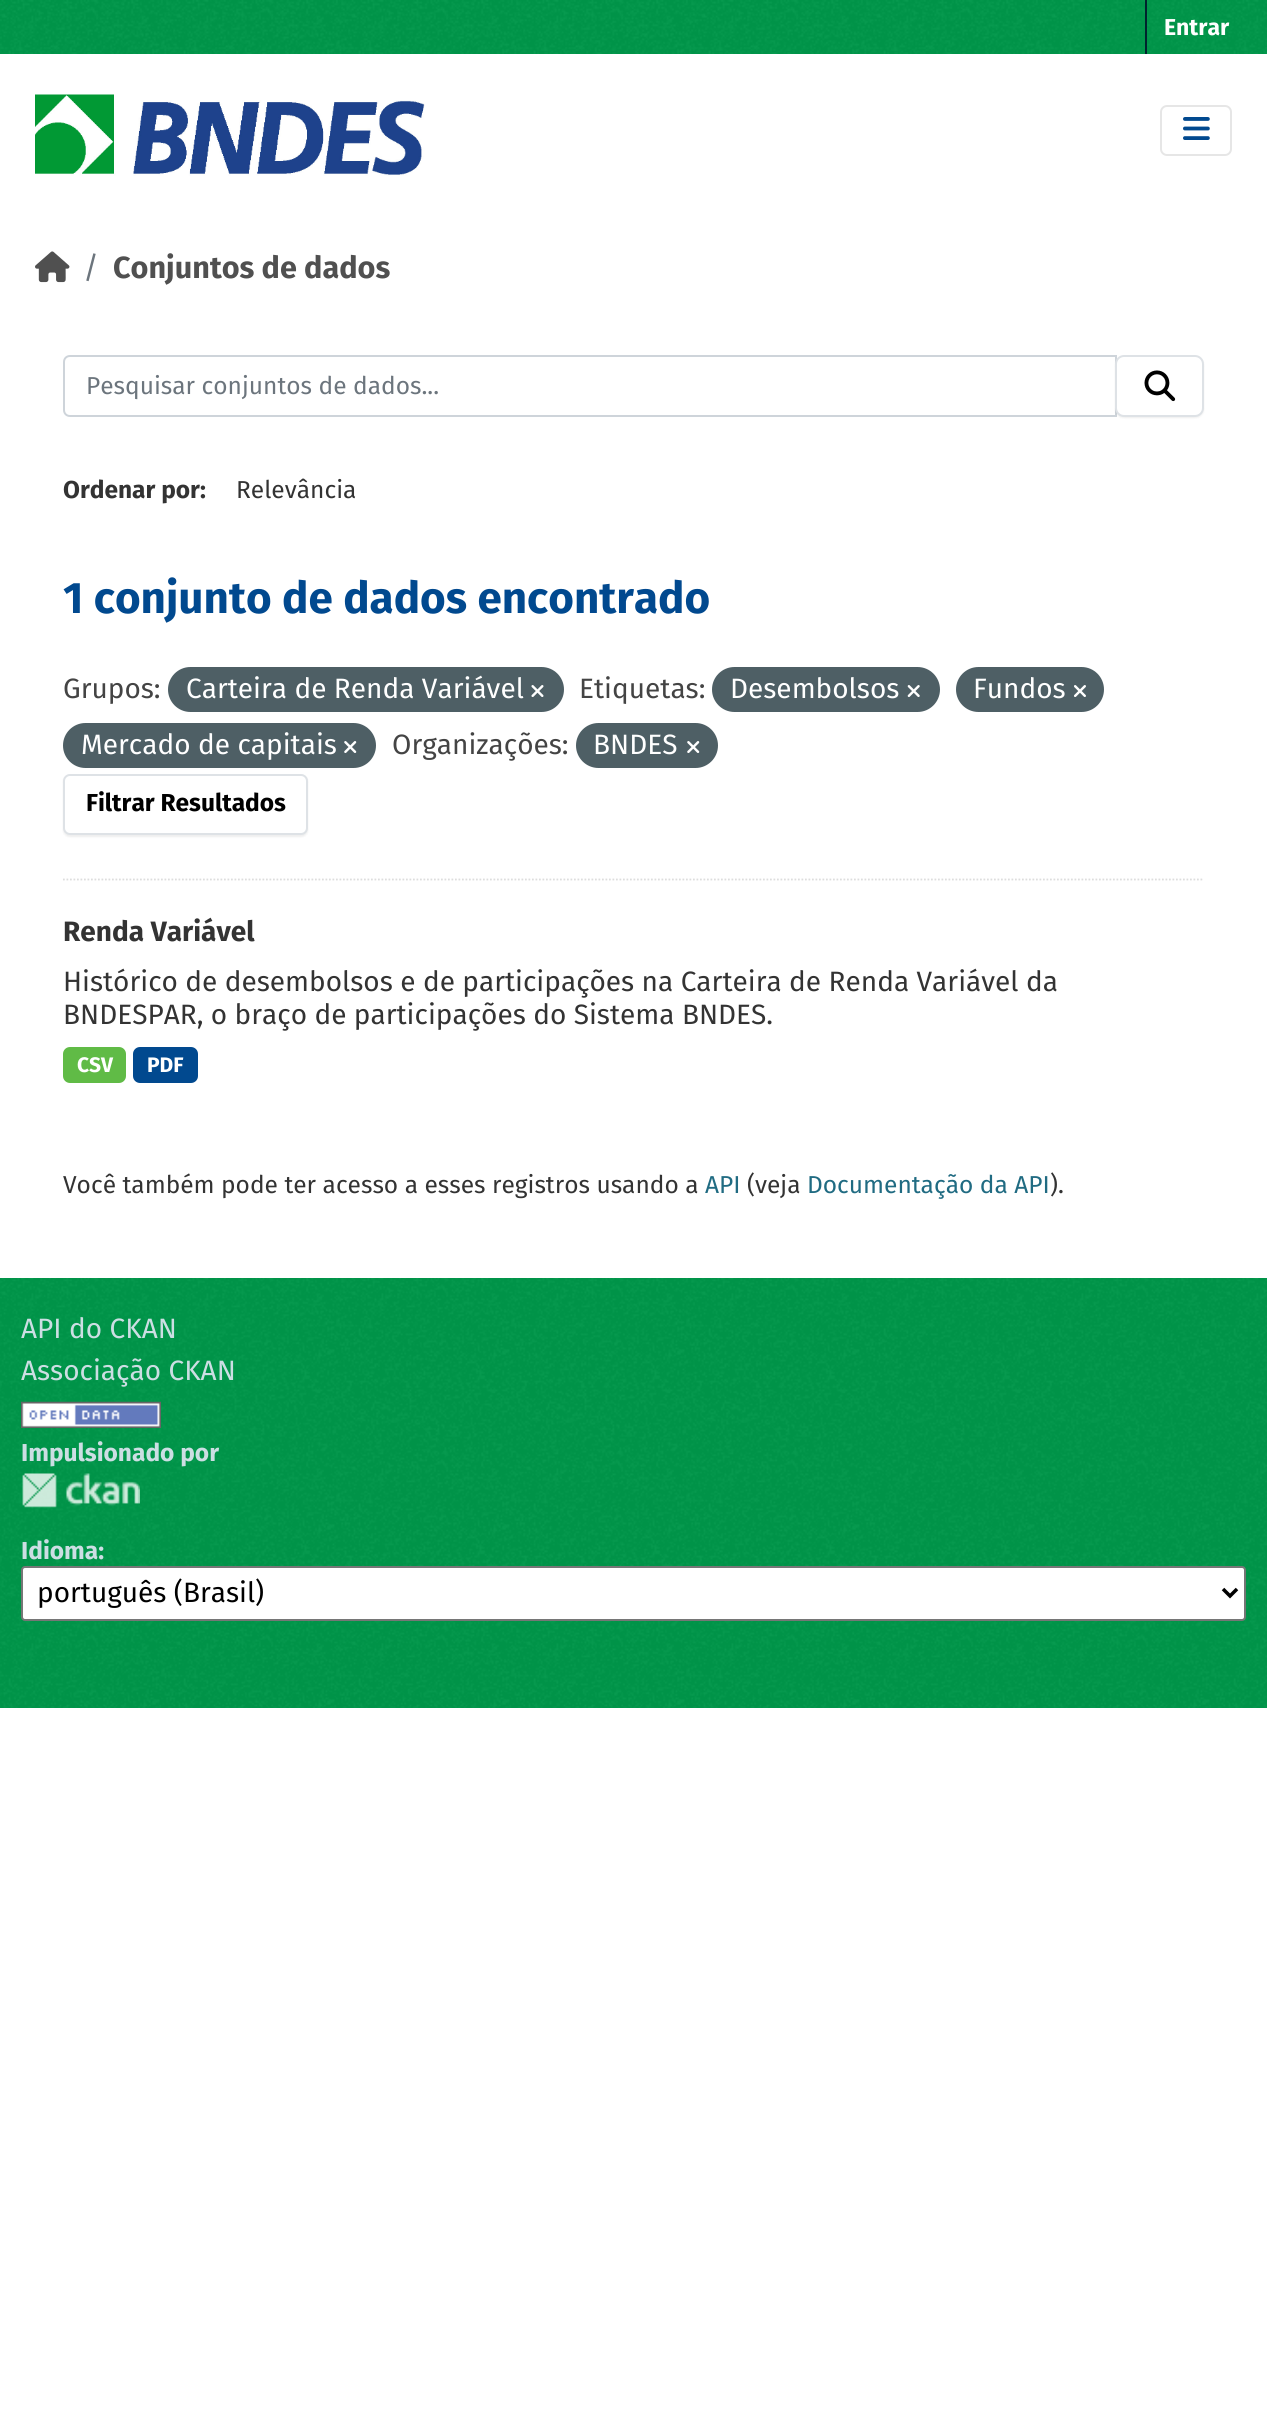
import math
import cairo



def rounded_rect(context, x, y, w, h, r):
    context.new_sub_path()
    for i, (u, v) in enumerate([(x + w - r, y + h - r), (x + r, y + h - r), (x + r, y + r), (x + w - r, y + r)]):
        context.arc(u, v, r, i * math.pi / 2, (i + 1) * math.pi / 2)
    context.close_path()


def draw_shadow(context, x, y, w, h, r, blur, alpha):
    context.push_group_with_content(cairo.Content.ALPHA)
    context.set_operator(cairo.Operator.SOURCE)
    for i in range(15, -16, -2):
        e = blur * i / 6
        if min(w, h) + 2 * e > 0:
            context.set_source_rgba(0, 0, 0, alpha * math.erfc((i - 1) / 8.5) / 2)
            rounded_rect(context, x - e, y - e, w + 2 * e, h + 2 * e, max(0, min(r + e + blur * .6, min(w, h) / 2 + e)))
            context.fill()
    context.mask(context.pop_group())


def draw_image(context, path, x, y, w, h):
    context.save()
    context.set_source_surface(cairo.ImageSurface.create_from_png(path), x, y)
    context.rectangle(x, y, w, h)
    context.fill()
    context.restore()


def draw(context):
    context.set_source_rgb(1, 1, 1)
    context.paint()
    context.set_source_rgb(0, 152 / 255, 74 / 255)
    context.rectangle(0, 0, 1267, 54)
    context.fill()
    draw_image(context, "images/1.png", 0, 0, 1267, 54)
    context.set_source_rgb(0, 35 / 255, 46 / 255)
    context.rectangle(1145, 0, 2, 54)
    context.fill()
    draw_image(context, "images/2.png", 35, 94, 390, 82)
    rounded_rect(context, 1161, 106, 70, 49, 6)
    context.set_source_rgb(230 / 255, 230 / 255, 230 / 255)
    context.stroke()
    draw_image(context, "images/3.png", 1183, 117, 27, 23)
    draw_image(context, "images/4.png", 35, 251, 35, 32)
    context.new_path()
    context.move_to(63, 879.5)
    context.line_to(1204, 879.5)
    context.set_source_rgb(221 / 255, 221 / 255, 221 / 255)
    context.set_line_width(1.8)
    context.set_dash([1.75, 1.75])
    context.stroke()
    context.new_path()
    context.move_to(70, 356)
    context.line_to(1116, 356)
    context.line_to(1116, 416)
    context.line_to(70, 416)
    context.curve_to(66.5, 416, 64, 413.5, 64, 410)
    context.line_to(64, 362)
    context.curve_to(64, 358.5, 66.5, 356, 70, 356)
    context.close_path()
    context.set_source_rgb(206 / 255, 212 / 255, 218 / 255)
    context.set_line_width(2)
    context.set_dash([])
    context.stroke()
    context.set_source_rgb(0, 0, 0)
    draw_shadow(context, 1115, 357, 89, 61, 9, 1, 0.07)
    context.set_source_rgb(1, 1, 1)
    rounded_rect(context, 1116, 356, 87, 60, 8)
    context.fill_preserve()
    context.set_source_rgb(222 / 255, 226 / 255, 230 / 255)
    context.stroke()
    draw_image(context, "images/5.png", 1144, 370, 32, 32)
    context.set_source_rgb(78 / 255, 95 / 255, 101 / 255)
    rounded_rect(context, 168, 667, 396, 45, 22.5)
    context.fill()
    draw_image(context, "images/6.png", 531, 685, 13, 12)
    rounded_rect(context, 712, 667, 228, 45, 22.5)
    context.fill()
    draw_image(context, "images/7.png", 907, 685, 13, 12)
    rounded_rect(context, 956, 667, 148, 45, 22.5)
    context.fill()
    draw_image(context, "images/8.png", 1074, 685, 12, 12)
    rounded_rect(context, 63, 723, 313, 45, 22.5)
    context.fill()
    draw_image(context, "images/9.png", 344, 741, 13, 12)
    rounded_rect(context, 576, 723, 142, 45, 22.5)
    context.fill()
    draw_image(context, "images/9.png", 687, 741, 13, 12)
    context.set_source_rgb(0, 0, 0)
    draw_shadow(context, 63, 775, 245, 62, 7, 1, 0.07)
    context.set_source_rgb(1, 1, 1)
    rounded_rect(context, 64, 775, 243, 59, 6)
    context.fill_preserve()
    context.set_source_rgb(222 / 255, 226 / 255, 230 / 255)
    context.stroke()
    context.set_source_rgb(96 / 255, 187 / 255, 70 / 255)
    rounded_rect(context, 63, 1047, 63, 36, 7)
    context.fill()
    context.set_source_rgb(1 / 255, 73 / 255, 143 / 255)
    rounded_rect(context, 133, 1047, 65, 36, 7)
    context.fill()
    context.set_source_rgb(0, 152 / 255, 74 / 255)
    context.rectangle(0, 1278, 1267, 430)
    context.fill()
    draw_image(context, "images/10.png", 0, 1278, 1267, 430)
    draw_image(context, "images/11.png", 21, 1401, 140, 27)
    draw_image(context, "images/12.png", 22, 1473, 118, 35)
    context.set_source_rgb(1, 1, 1)
    rounded_rect(context, 22, 1567, 1223, 53, 3)
    context.fill_preserve()
    context.set_source_rgb(118 / 255, 118 / 255, 118 / 255)
    context.stroke()
    context.new_path()
    context.move_to(1223, 1589)
    context.line_to(1230, 1596)
    context.line_to(1237, 1589)
    context.set_source_rgb(0, 0, 0)
    context.set_line_width(3.5)
    context.stroke()
    context.select_font_face("Fira Sans", cairo.FontSlant.NORMAL, cairo.FontWeight.BOLD)
    context.set_font_size(23)
    context.set_source_rgb(1, 1, 1)
    context.move_to(1164, 35)
    context.show_text("Entrar")
    context.select_font_face("Fira Sans")
    context.set_font_size(30.6)
    context.set_source_rgb(108 / 255, 117 / 255, 125 / 255)
    context.move_to(83, 278)
    context.show_text("/")
    context.select_font_face("Fira Sans", cairo.FontSlant.NORMAL, cairo.FontWeight.BOLD)
    context.set_source_rgb(80 / 255, 80 / 255, 80 / 255)
    context.move_to(113, 278)
    context.show_text("Conjuntos de dados")
    context.select_font_face("Fira Sans")
    context.set_font_size(24.5)
    context.set_source_rgb(108 / 255, 117 / 255, 125 / 255)
    context.move_to(86, 394)
    context.show_text("Pesquisar conjuntos de dados...")
    context.select_font_face("Fira Sans", cairo.FontSlant.NORMAL, cairo.FontWeight.BOLD)
    context.set_source_rgb(51 / 255, 51 / 255, 51 / 255)
    context.move_to(63, 498)
    context.show_text("Ordenar por:")
    context.select_font_face("Fira Sans")
    context.move_to(236, 498)
    context.show_text("Relevância")
    context.select_font_face("Fira Sans", cairo.FontSlant.NORMAL, cairo.FontWeight.BOLD)
    context.set_font_size(44)
    context.set_source_rgb(1 / 255, 73 / 255, 143 / 255)
    context.move_to(63, 613)
    context.show_text("1 conjunto de dados encontrado")
    context.select_font_face("Fira Sans")
    context.set_font_size(28)
    context.set_source_rgb(68 / 255, 68 / 255, 68 / 255)
    context.move_to(63, 698)
    context.show_text("Grupos:")
    context.set_source_rgb(1, 1, 1)
    context.move_to(186, 698)
    context.show_text("Carteira de Renda Variável")
    context.set_source_rgb(68 / 255, 68 / 255, 68 / 255)
    context.move_to(579, 698)
    context.show_text("Etiquetas:")
    context.set_source_rgb(1, 1, 1)
    context.move_to(730, 698)
    context.show_text("Desembolsos")
    context.move_to(973, 698)
    context.show_text("Fundos")
    context.move_to(81, 754)
    context.show_text("Mercado de capitais")
    context.set_source_rgb(68 / 255, 68 / 255, 68 / 255)
    context.move_to(392, 754)
    context.show_text("Organizações:")
    context.set_source_rgb(1, 1, 1)
    context.move_to(593, 754)
    context.show_text("BNDES")
    context.select_font_face("Fira Sans", cairo.FontSlant.NORMAL, cairo.FontWeight.BOLD)
    context.set_font_size(24.5)
    context.set_source_rgb(0, 0, 0)
    context.move_to(86, 811)
    context.show_text("Filtrar Resultados")
    context.set_font_size(28)
    context.set_source_rgb(51 / 255, 51 / 255, 51 / 255)
    context.move_to(63, 941)
    context.show_text("Renda Variável")
    context.select_font_face("Fira Sans")
    context.move_to(63, 991)
    context.show_text("Histórico de desembolsos e de participações na Carteira de Renda Variável da")
    context.move_to(63, 1024)
    context.show_text("BNDESPAR, o braço de participações do Sistema BNDES.")
    context.select_font_face("Fira Sans", cairo.FontSlant.NORMAL, cairo.FontWeight.BOLD)
    context.set_font_size(21)
    context.set_source_rgb(1, 1, 1)
    context.move_to(77, 1072)
    context.show_text("CSV")
    context.move_to(147, 1072)
    context.show_text("PDF")
    context.select_font_face("Fira Sans")
    context.set_font_size(24.5)
    context.set_source_rgb(51 / 255, 51 / 255, 51 / 255)
    context.move_to(63, 1193)
    context.show_text("Você também pode ter acesso a esses registros usando a")
    context.set_source_rgb(32 / 255, 107 / 255, 130 / 255)
    context.move_to(705, 1193)
    context.show_text("API")
    context.set_source_rgb(51 / 255, 51 / 255, 51 / 255)
    context.move_to(747, 1193)
    context.show_text("(veja")
    context.set_source_rgb(32 / 255, 107 / 255, 130 / 255)
    context.move_to(807, 1193)
    context.show_text("Documentação da API")
    context.set_source_rgb(51 / 255, 51 / 255, 51 / 255)
    context.move_to(1050, 1193)
    context.show_text(").")
    context.set_font_size(28)
    context.set_source_rgb(204 / 255, 222 / 255, 227 / 255)
    context.move_to(21, 1338)
    context.show_text("API do CKAN")
    context.move_to(21, 1380)
    context.show_text("Associação CKAN")
    context.select_font_face("Fira Sans", cairo.FontSlant.NORMAL, cairo.FontWeight.BOLD)
    context.set_font_size(24.5)
    context.move_to(21, 1461)
    context.show_text("Impulsionado por")
    context.move_to(21, 1559)
    context.show_text("Idioma:")
    context.select_font_face("Fira Sans")
    context.set_font_size(28)
    context.set_source_rgb(0, 0, 0)
    context.move_to(37, 1602)
    context.show_text("português (Brasil)")


surface = cairo.ImageSurface(cairo.Format.RGB24, 1267, 2418)
context = cairo.Context(surface)
options = cairo.FontOptions()
options.set_hint_metrics(cairo.HintMetrics.OFF)
options.set_hint_style(cairo.HintStyle.NONE)
context.set_font_options(options)
context.set_miter_limit(4)
draw(context)
surface.write_to_png("out.png")
